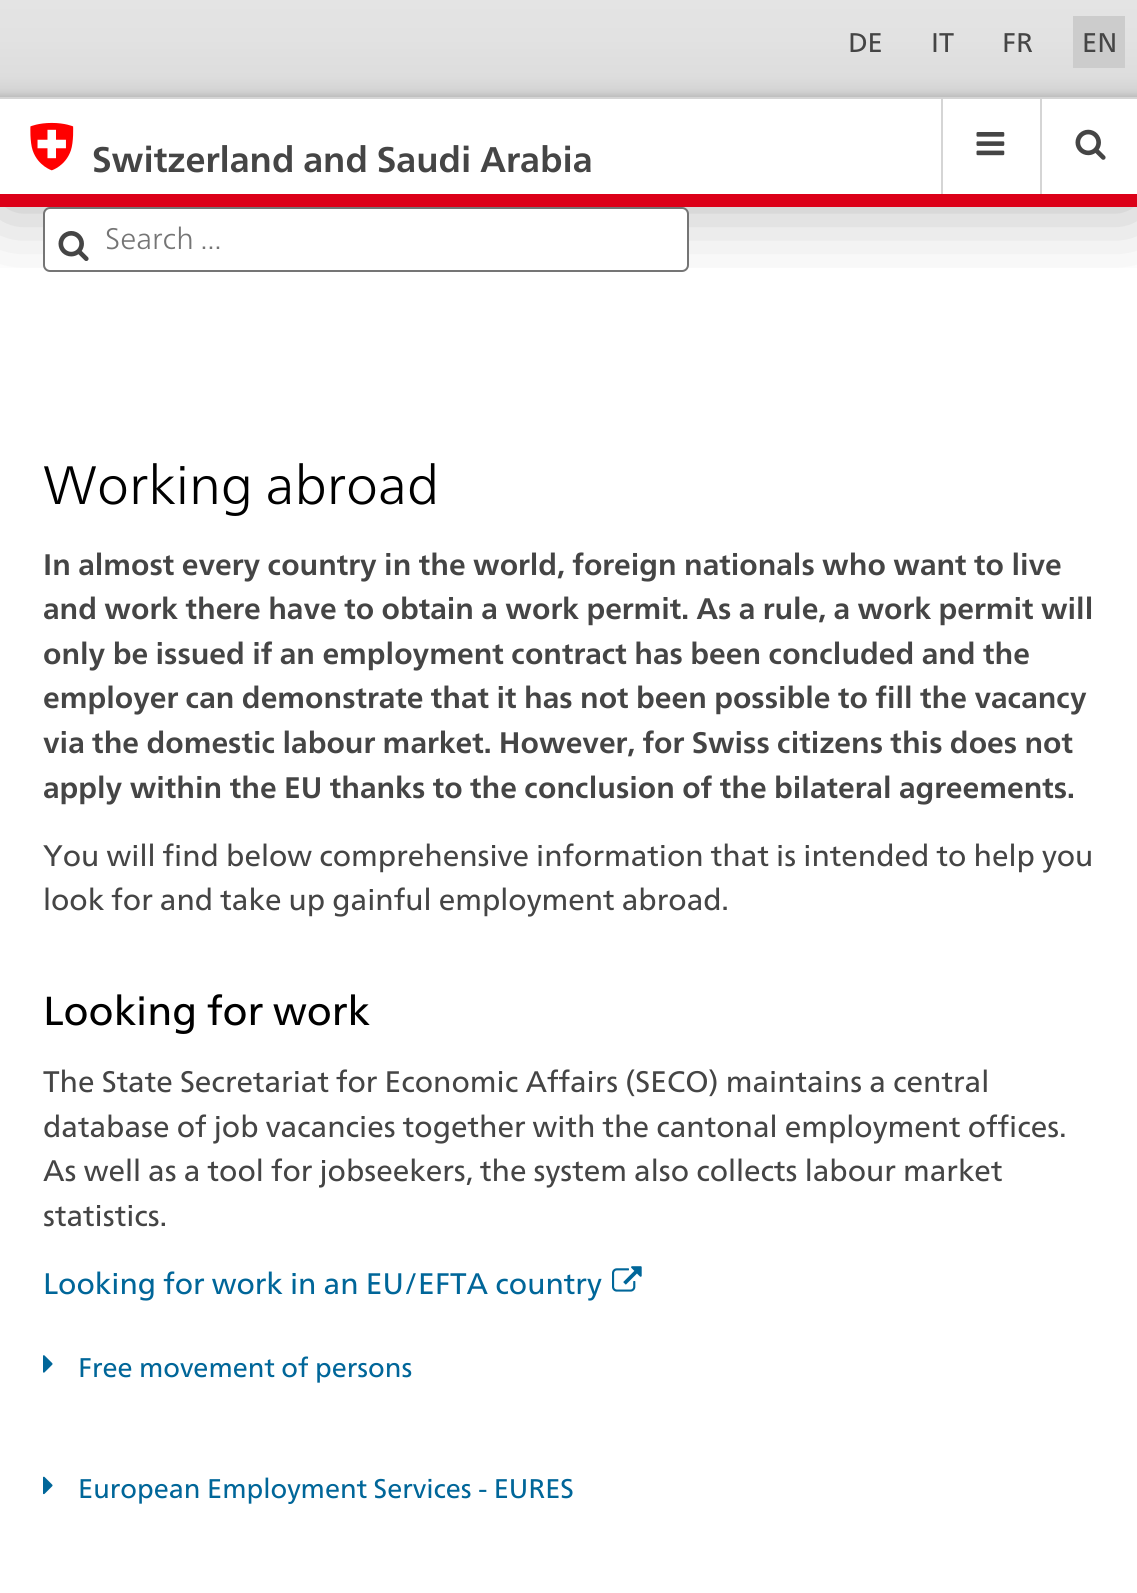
import math
import cairo



def rounded_rect(context, x, y, w, h, r):
    context.new_sub_path()
    for i, (u, v) in enumerate([(x + w - r, y + h - r), (x + r, y + h - r), (x + r, y + r), (x + w - r, y + r)]):
        context.arc(u, v, r, i * math.pi / 2, (i + 1) * math.pi / 2)
    context.close_path()


def draw_shadow(context, x, y, w, h, r, blur, alpha):
    context.push_group_with_content(cairo.Content.ALPHA)
    context.set_operator(cairo.Operator.SOURCE)
    for i in range(15, -16, -2):
        e = blur * i / 6
        if min(w, h) + 2 * e > 0:
            context.set_source_rgba(0, 0, 0, alpha * math.erfc((i - 1) / 8.5) / 2)
            rounded_rect(context, x - e, y - e, w + 2 * e, h + 2 * e, max(0, min(r + e + blur * .6, min(w, h) / 2 + e)))
            context.fill()
    context.mask(context.pop_group())


def draw_image(context, path, x, y, w, h):
    context.save()
    context.set_source_surface(cairo.ImageSurface.create_from_png(path), x, y)
    context.rectangle(x, y, w, h)
    context.fill()
    context.restore()


def draw(context):
    context.set_source_rgb(1, 1, 1)
    context.paint()
    context.save()
    context.rectangle(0, 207, 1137, 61)
    context.clip()
    context.set_source_rgb(0, 0, 0)
    draw_shadow(context, 0, 99, 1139, 108, 0, 40.5, 0.3)
    context.restore()
    gradient = cairo.LinearGradient(569, 0, 569, 97)
    gradient.add_color_stop_rgba(0, 228 / 255, 228 / 255, 228 / 255, 1)
    gradient.add_color_stop_rgba(0.39, 226 / 255, 226 / 255, 226 / 255, 1)
    gradient.add_color_stop_rgba(0.79, 221 / 255, 221 / 255, 221 / 255, 1)
    gradient.add_color_stop_rgba(0.91, 213 / 255, 213 / 255, 213 / 255, 1)
    gradient.add_color_stop_rgba(0.95, 207 / 255, 207 / 255, 207 / 255, 1)
    gradient.add_color_stop_rgba(1, 190 / 255, 190 / 255, 190 / 255, 1)
    context.set_source(gradient)
    context.rectangle(0, 0, 1137, 97)
    context.fill()
    context.set_source_rgb(213 / 255, 213 / 255, 213 / 255)
    context.rectangle(0, 97, 1137, 2)
    context.fill()
    context.set_source_rgb(204 / 255, 204 / 255, 204 / 255)
    context.rectangle(1073, 16, 52, 52)
    context.fill()
    context.set_source_rgb(220 / 255, 0, 24 / 255)
    context.rectangle(0, 194, 1137, 13)
    context.fill()
    draw_image(context, "images/1.png", 30, 122, 44, 49)
    context.set_source_rgb(213 / 255, 213 / 255, 213 / 255)
    context.rectangle(941, 99, 2, 95)
    context.fill()
    draw_image(context, "images/2.png", 976, 132, 29, 24)
    context.rectangle(1040, 99, 2, 95)
    context.fill()
    draw_image(context, "images/3.png", 1075, 129, 31, 31)
    context.set_source_rgb(1, 1, 1)
    rounded_rect(context, 44, 208, 644, 63, 6)
    context.fill_preserve()
    context.set_source_rgb(117 / 255, 117 / 255, 117 / 255)
    context.stroke()
    draw_image(context, "images/4.png", 58, 231, 31, 30)
    draw_image(context, "images/5.png", 612, 1266, 30, 26)
    draw_image(context, "images/6.png", 43, 1355, 10, 18)
    draw_image(context, "images/7.png", 43, 1476, 10, 19)
    context.select_font_face("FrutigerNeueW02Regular")
    context.set_font_size(27)
    context.set_source_rgb(69 / 255, 69 / 255, 69 / 255)
    context.move_to(848, 52)
    context.show_text("DE")
    context.move_to(931, 52)
    context.show_text("IT")
    context.move_to(1002, 52)
    context.show_text("FR")
    context.move_to(1082, 52)
    context.show_text("EN")
    context.select_font_face("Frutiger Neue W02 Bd", cairo.FontSlant.NORMAL, cairo.FontWeight.BOLD)
    context.set_font_size(35.6)
    context.move_to(92, 172)
    context.show_text("Switzerland and Saudi Arabia")
    context.select_font_face("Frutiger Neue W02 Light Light")
    context.set_font_size(29.7)
    context.set_source_rgb(117 / 255, 117 / 255, 117 / 255)
    context.move_to(105, 249)
    context.show_text("Search ...")
    context.set_font_size(54)
    context.set_source_rgb(0, 0, 0)
    context.move_to(43, 504)
    context.show_text("Working abroad")
    context.select_font_face("Frutiger Neue W02 Bd", cairo.FontSlant.NORMAL, cairo.FontWeight.BOLD)
    context.set_font_size(29.7)
    context.set_source_rgb(69 / 255, 69 / 255, 69 / 255)
    context.move_to(43, 575)
    context.show_text("In almost every country in the world, foreign nationals who want to live")
    context.move_to(43, 619)
    context.show_text("and work there have to obtain a work permit. As a rule, a work permit will")
    context.move_to(43, 664)
    context.show_text("only be issued if an employment contract has been concluded and the")
    context.move_to(43, 708)
    context.show_text("employer can demonstrate that it has not been possible to fill the vacancy")
    context.move_to(43, 753)
    context.show_text("via the domestic labour market. However, for Swiss citizens this does not")
    context.move_to(43, 798)
    context.show_text("apply within the EU thanks to the conclusion of the bilateral agreements.")
    context.select_font_face("FrutigerNeueW02Regular")
    context.move_to(43, 866)
    context.show_text("You will find below comprehensive information that is intended to help you")
    context.move_to(43, 910)
    context.show_text("look for and take up gainful employment abroad.")
    context.set_font_size(40.5)
    context.set_source_rgb(0, 0, 0)
    context.move_to(43, 1025)
    context.show_text("Looking for work")
    context.set_font_size(29.7)
    context.set_source_rgb(69 / 255, 69 / 255, 69 / 255)
    context.move_to(43, 1092)
    context.show_text("The State Secretariat for Economic Affairs (SECO) maintains a central")
    context.move_to(43, 1137)
    context.show_text("database of job vacancies together with the cantonal employment offices.")
    context.move_to(43, 1181)
    context.show_text("As well as a tool for jobseekers, the system also collects labour market")
    context.move_to(43, 1226)
    context.show_text("statistics.")
    context.set_source_rgb(0, 102 / 255, 153 / 255)
    context.move_to(43, 1294)
    context.show_text("Looking for work in an EU/EFTA country")
    context.set_font_size(27)
    context.move_to(78, 1377)
    context.show_text("Free movement of persons")
    context.move_to(78, 1498)
    context.show_text("European Employment Services - EURES")


surface = cairo.ImageSurface(cairo.Format.RGB24, 1137, 1593)
context = cairo.Context(surface)
options = cairo.FontOptions()
options.set_hint_metrics(cairo.HintMetrics.OFF)
options.set_hint_style(cairo.HintStyle.NONE)
context.set_font_options(options)
context.set_miter_limit(4)
draw(context)
surface.write_to_png("out.png")
